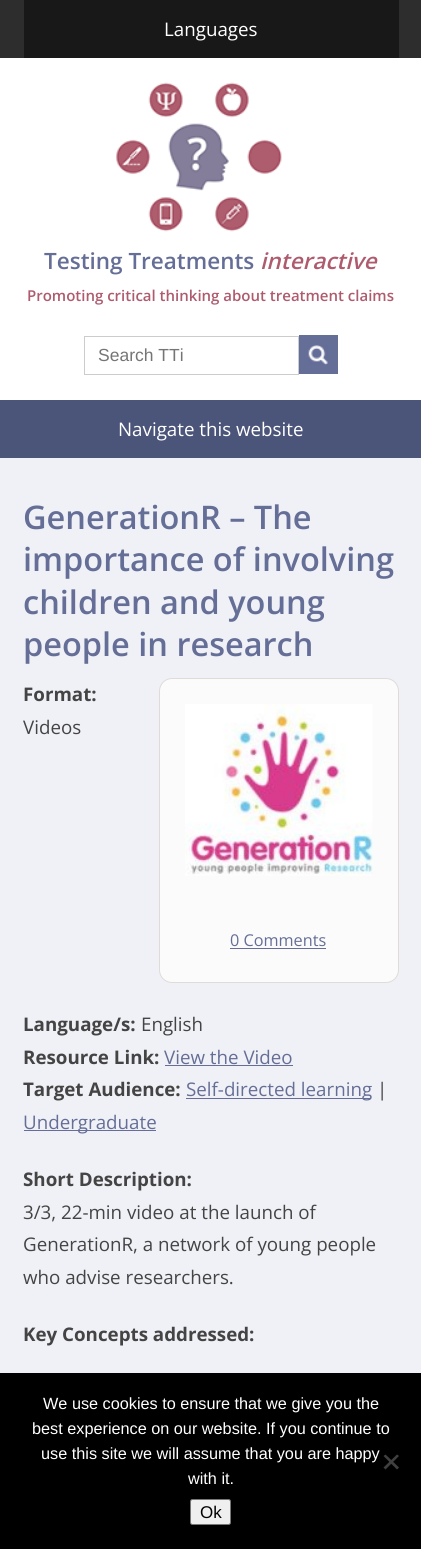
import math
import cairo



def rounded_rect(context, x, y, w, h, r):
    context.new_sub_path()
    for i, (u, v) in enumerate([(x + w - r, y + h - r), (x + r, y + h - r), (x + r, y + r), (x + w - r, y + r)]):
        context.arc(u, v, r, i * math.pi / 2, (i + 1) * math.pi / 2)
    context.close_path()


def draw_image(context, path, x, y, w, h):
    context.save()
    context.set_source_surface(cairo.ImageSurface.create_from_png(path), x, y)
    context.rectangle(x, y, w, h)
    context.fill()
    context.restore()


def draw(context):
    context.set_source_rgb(45 / 255, 45 / 255, 45 / 255)
    context.paint()
    context.set_source_rgb(24 / 255, 24 / 255, 24 / 255)
    context.rectangle(24, 0, 375, 58)
    context.fill()
    context.set_source_rgb(1, 1, 1)
    context.rectangle(0, 58, 421, 342)
    context.fill()
    draw_image(context, "images/1.png", 116, 82, 166, 150)
    context.rectangle(84.5, 336.5, 214, 38)
    context.set_source_rgb(204 / 255, 204 / 255, 204 / 255)
    context.set_line_width(1)
    context.stroke()
    context.set_source_rgb(100 / 255, 110 / 255, 151 / 255)
    context.rectangle(299, 335, 39, 39)
    context.fill()
    draw_image(context, "images/2.png", 308, 345, 20, 20)
    context.set_source_rgb(75 / 255, 84 / 255, 121 / 255)
    context.rectangle(0, 400, 421, 58)
    context.fill()
    context.set_source_rgb(240 / 255, 241 / 255, 246 / 255)
    context.rectangle(0, 458, 421, 915)
    context.fill()
    context.set_source_rgb(251 / 255, 251 / 255, 251 / 255)
    rounded_rect(context, 159.5, 678.5, 239, 304, 12.5)
    context.fill_preserve()
    context.set_source_rgb(223 / 255, 220 / 255, 215 / 255)
    context.stroke()
    draw_image(context, "images/3.png", 185, 704, 188, 172)
    context.set_source_rgb(101 / 255, 109 / 255, 152 / 255)
    context.rectangle(230, 948, 96, 1)
    context.fill()
    context.rectangle(165, 1065, 128, 1)
    context.fill()
    context.rectangle(186, 1098, 185, 1)
    context.fill()
    context.rectangle(24, 1130, 132, 1)
    context.fill()
    context.set_source_rgb(0, 0, 0)
    context.rectangle(0, 1373, 421, 176)
    context.fill()
    context.set_source_rgb(64 / 255, 64 / 255, 64 / 255)
    context.new_path()
    context.move_to(397, 1454.5)
    context.line_to(399, 1456)
    context.line_to(385.5, 1469.5)
    context.line_to(383.5, 1467.5)
    context.close_path()
    context.fill()
    context.new_path()
    context.move_to(383.5, 1456)
    context.line_to(385.5, 1454.5)
    context.line_to(399, 1467.5)
    context.line_to(397, 1469.5)
    context.close_path()
    context.fill()
    context.set_source_rgb(239 / 255, 239 / 255, 239 / 255)
    rounded_rect(context, 190.5, 1499.5, 40, 25, 2)
    context.fill_preserve()
    context.set_source_rgb(118 / 255, 118 / 255, 118 / 255)
    context.stroke()
    context.select_font_face("Open Sans")
    context.set_font_size(18.75)
    context.set_source_rgb(1, 1, 1)
    context.move_to(164, 36)
    context.show_text("Languages")
    context.select_font_face("Open Sans SemiBold")
    context.set_font_size(22.5)
    context.set_source_rgb(101 / 255, 110 / 255, 150 / 255)
    context.move_to(44, 269)
    context.show_text("Testing Treatments")
    context.select_font_face("Open Sans SemiBold", cairo.FontSlant.ITALIC)
    context.set_source_rgb(174 / 255, 91 / 255, 110 / 255)
    context.move_to(260, 269)
    context.show_text("interactive")
    context.select_font_face("Open Sans SemiBold")
    context.set_font_size(15)
    context.move_to(27, 301)
    context.show_text("Promoting critical thinking about treatment claims")
    context.select_font_face("Liberation Sans")
    context.set_font_size(17.5)
    context.set_source_rgb(117 / 255, 117 / 255, 117 / 255)
    context.move_to(98, 361)
    context.show_text("Search TTi")
    context.select_font_face("Open Sans")
    context.set_font_size(18.75)
    context.set_source_rgb(1, 1, 1)
    context.move_to(118, 436)
    context.show_text("Navigate this website")
    context.select_font_face("Open Sans SemiBold")
    context.set_font_size(32.5)
    context.set_source_rgb(101 / 255, 110 / 255, 150 / 255)
    context.move_to(23, 529)
    context.show_text("GenerationR – The")
    context.move_to(23, 571)
    context.show_text("importance of involving")
    context.move_to(23, 614)
    context.show_text("children and young")
    context.move_to(23, 656)
    context.show_text("people in research")
    context.select_font_face("Open Sans", cairo.FontSlant.NORMAL, cairo.FontWeight.BOLD)
    context.set_font_size(18.75)
    context.set_source_rgb(68 / 255, 68 / 255, 68 / 255)
    context.move_to(23, 701)
    context.show_text("Format:")
    context.select_font_face("Open Sans")
    context.move_to(23, 734)
    context.show_text("Videos")
    context.set_font_size(16.25)
    context.set_source_rgb(101 / 255, 110 / 255, 150 / 255)
    context.move_to(230, 946)
    context.show_text("0 Comments")
    context.select_font_face("Open Sans", cairo.FontSlant.NORMAL, cairo.FontWeight.BOLD)
    context.set_font_size(18.75)
    context.set_source_rgb(68 / 255, 68 / 255, 68 / 255)
    context.move_to(23, 1031)
    context.show_text("Language/s:")
    context.select_font_face("Open Sans")
    context.move_to(141, 1031)
    context.show_text("English")
    context.select_font_face("Open Sans", cairo.FontSlant.NORMAL, cairo.FontWeight.BOLD)
    context.move_to(23, 1064)
    context.show_text("Resource Link:")
    context.select_font_face("Open Sans")
    context.set_source_rgb(101 / 255, 110 / 255, 150 / 255)
    context.move_to(164, 1064)
    context.show_text("View the Video")
    context.select_font_face("Open Sans", cairo.FontSlant.NORMAL, cairo.FontWeight.BOLD)
    context.set_source_rgb(68 / 255, 68 / 255, 68 / 255)
    context.move_to(23, 1096)
    context.show_text("Target Audience:")
    context.select_font_face("Open Sans")
    context.set_source_rgb(101 / 255, 110 / 255, 150 / 255)
    context.move_to(186, 1096)
    context.show_text("Self-directed learning")
    context.set_source_rgb(68 / 255, 68 / 255, 68 / 255)
    context.move_to(377, 1096)
    context.show_text("|")
    context.set_source_rgb(101 / 255, 110 / 255, 150 / 255)
    context.move_to(23, 1129)
    context.show_text("Undergraduate")
    context.select_font_face("Open Sans", cairo.FontSlant.NORMAL, cairo.FontWeight.BOLD)
    context.set_source_rgb(68 / 255, 68 / 255, 68 / 255)
    context.move_to(23, 1186)
    context.show_text("Short Description:")
    context.select_font_face("Open Sans")
    context.move_to(23, 1219)
    context.show_text("3/3, 22-min video at the launch of")
    context.move_to(23, 1251)
    context.show_text("GenerationR, a network of young people")
    context.move_to(23, 1284)
    context.show_text("who advise researchers.")
    context.select_font_face("Open Sans", cairo.FontSlant.NORMAL, cairo.FontWeight.BOLD)
    context.move_to(23, 1341)
    context.show_text("Key Concepts addressed:")
    context.select_font_face("Liberation Sans")
    context.set_font_size(16.25)
    context.set_source_rgb(1, 1, 1)
    context.move_to(43, 1409)
    context.show_text("We use cookies to ensure that we give you the")
    context.move_to(32, 1434)
    context.show_text("best experience on our website. If you continue to")
    context.move_to(41, 1459)
    context.show_text("use this site we will assume that you are happy")
    context.move_to(188, 1484)
    context.show_text("with it.")
    context.set_font_size(17)
    context.set_source_rgb(0, 0, 0)
    context.move_to(200, 1518)
    context.show_text("Ok")


surface = cairo.ImageSurface(cairo.Format.RGB24, 421, 1549)
context = cairo.Context(surface)
options = cairo.FontOptions()
options.set_hint_metrics(cairo.HintMetrics.OFF)
options.set_hint_style(cairo.HintStyle.NONE)
context.set_font_options(options)
context.set_miter_limit(4)
draw(context)
surface.write_to_png("out.png")
